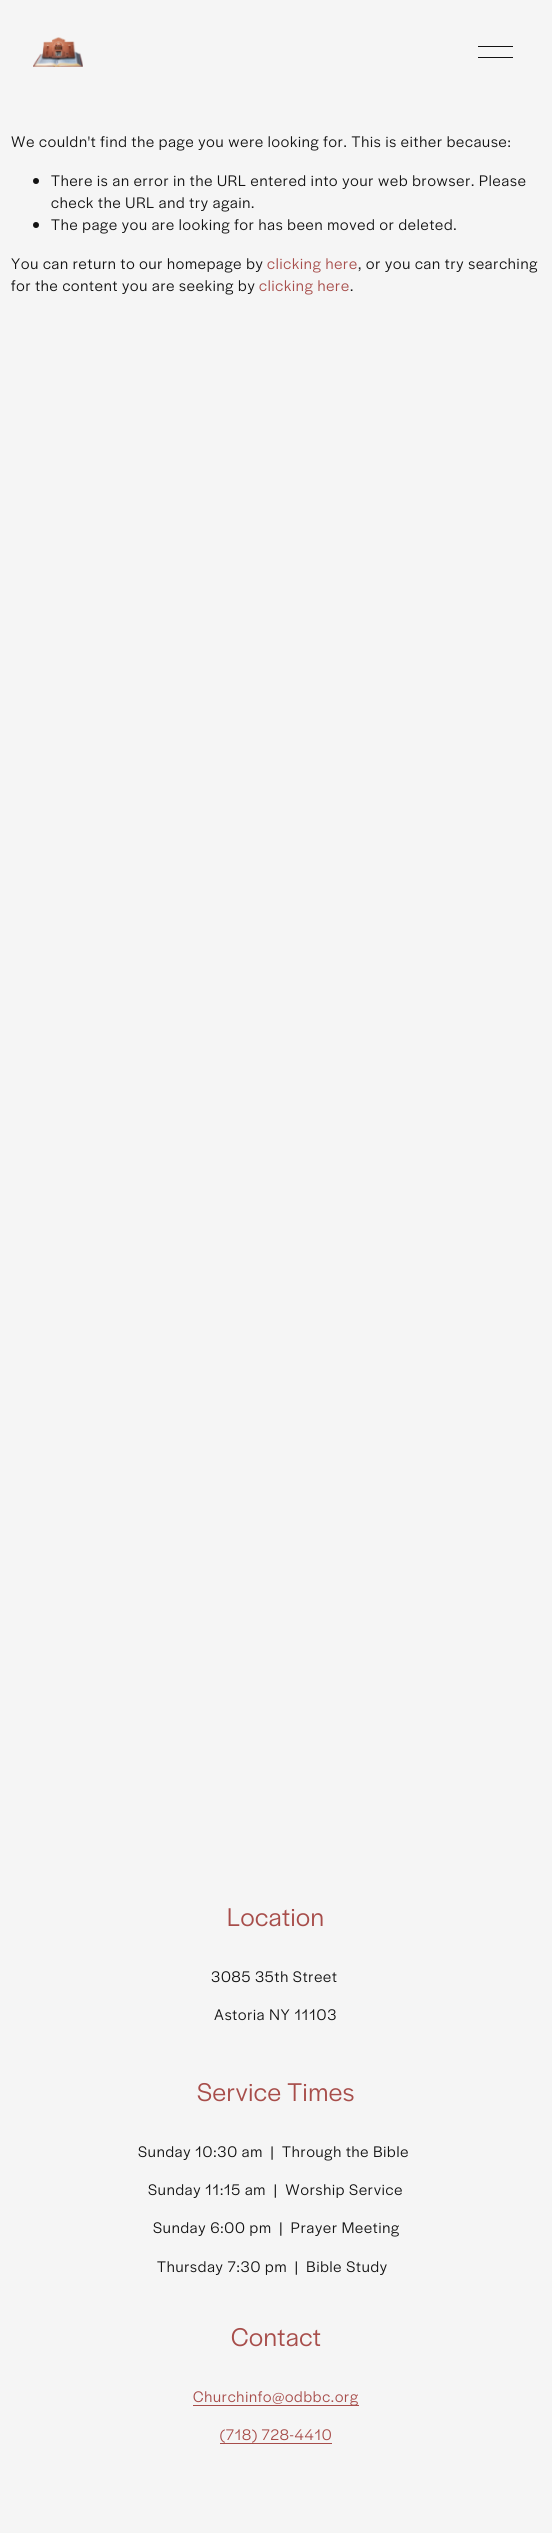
import math
import cairo



def draw_spaced(context, x, y, s, letter, word):
    context.move_to(x, y)
    for ch in s:
        context.show_text(ch)
        context.rel_move_to(letter + word * (ch == ' '), 0)


def draw_image(context, path, x, y, w, h):
    context.save()
    context.set_source_surface(cairo.ImageSurface.create_from_png(path), x, y)
    context.rectangle(x, y, w, h)
    context.fill()
    context.restore()


def draw(context):
    context.set_source_rgb(245 / 255, 245 / 255, 245 / 255)
    context.paint()
    draw_image(context, "images/1.png", 33, 37, 50, 30)
    context.set_source_rgb(18 / 255, 18 / 255, 18 / 255)
    context.rectangle(478, 46, 35, 1)
    context.fill()
    context.rectangle(478, 57, 35, 1)
    context.fill()
    context.arc(36, 181, 3, 0, 2 * math.pi)
    context.fill()
    context.arc(36, 225, 3, 0, 2 * math.pi)
    context.fill()
    context.set_source_rgb(167 / 255, 77 / 255, 74 / 255)
    context.rectangle(193, 2405, 166, 1)
    context.fill()
    context.rectangle(220, 2443, 112, 1)
    context.fill()
    context.select_font_face("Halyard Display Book")
    context.set_font_size(16)
    context.set_source_rgb(18 / 255, 18 / 255, 18 / 255)
    draw_spaced(context, 11, 147, "We couldn't find the page you were looking for. This is either because:", 0.8, 0)
    draw_spaced(context, 51, 186, "There is an error in the URL entered into your web browser. Please", 0.8, 0)
    draw_spaced(context, 51, 208, "check the URL and try again.", 0.8, 0)
    draw_spaced(context, 51, 230, "The page you are looking for has been moved or deleted.", 0.8, 0)
    draw_spaced(context, 11, 269, "You can return to our homepage by", 0.8, 0)
    context.set_source_rgb(167 / 255, 77 / 255, 74 / 255)
    draw_spaced(context, 267, 269, "clicking here", 0.8, 0)
    context.set_source_rgb(18 / 255, 18 / 255, 18 / 255)
    draw_spaced(context, 358, 269, ", or you can try searching", 0.8, 0)
    draw_spaced(context, 11, 291, "for the content you are seeking by", 0.8, 0)
    context.set_source_rgb(167 / 255, 77 / 255, 74 / 255)
    draw_spaced(context, 259, 291, "clicking here", 0.8, 0)
    context.set_source_rgb(18 / 255, 18 / 255, 18 / 255)
    draw_spaced(context, 350, 291, ".", 0.8, 0)
    context.set_font_size(26.75)
    context.set_source_rgb(167 / 255, 77 / 255, 74 / 255)
    draw_spaced(context, 227, 1926, "Location", 0.5, 0)
    context.set_font_size(16)
    context.set_source_rgb(18 / 255, 18 / 255, 18 / 255)
    draw_spaced(context, 211, 1982, "3085 35th Street", 0.8, 0)
    draw_spaced(context, 214, 2020, "Astoria NY 11103", 0.8, 0)
    context.set_font_size(26.75)
    context.set_source_rgb(167 / 255, 77 / 255, 74 / 255)
    draw_spaced(context, 197, 2101, "Service Times", 0.5, 0)
    context.set_font_size(16)
    context.set_source_rgb(18 / 255, 18 / 255, 18 / 255)
    draw_spaced(context, 138, 2157, "Sunday 10:30 am  |  Through the Bible", 0.8, 0)
    draw_spaced(context, 148, 2195, "Sunday 11:15 am  |  Worship Service", 0.8, 0)
    draw_spaced(context, 153, 2233, "Sunday 6:00 pm  |  Prayer Meeting", 0.8, 0)
    draw_spaced(context, 157, 2272, "Thursday 7:30 pm  |  Bible Study", 0.8, 0)
    context.set_font_size(26.75)
    context.set_source_rgb(167 / 255, 77 / 255, 74 / 255)
    draw_spaced(context, 231, 2346, "Contact", 0.5, 0)
    context.set_font_size(16)
    draw_spaced(context, 193, 2402, "Churchinfo@odbbc.org", 0.8, 0)
    draw_spaced(context, 220, 2440, "(718) 728-4410", 0.8, 0)


surface = cairo.ImageSurface(cairo.Format.RGB24, 552, 2533)
context = cairo.Context(surface)
options = cairo.FontOptions()
options.set_hint_metrics(cairo.HintMetrics.OFF)
options.set_hint_style(cairo.HintStyle.NONE)
context.set_font_options(options)
context.set_miter_limit(4)
draw(context)
surface.write_to_png("out.png")
